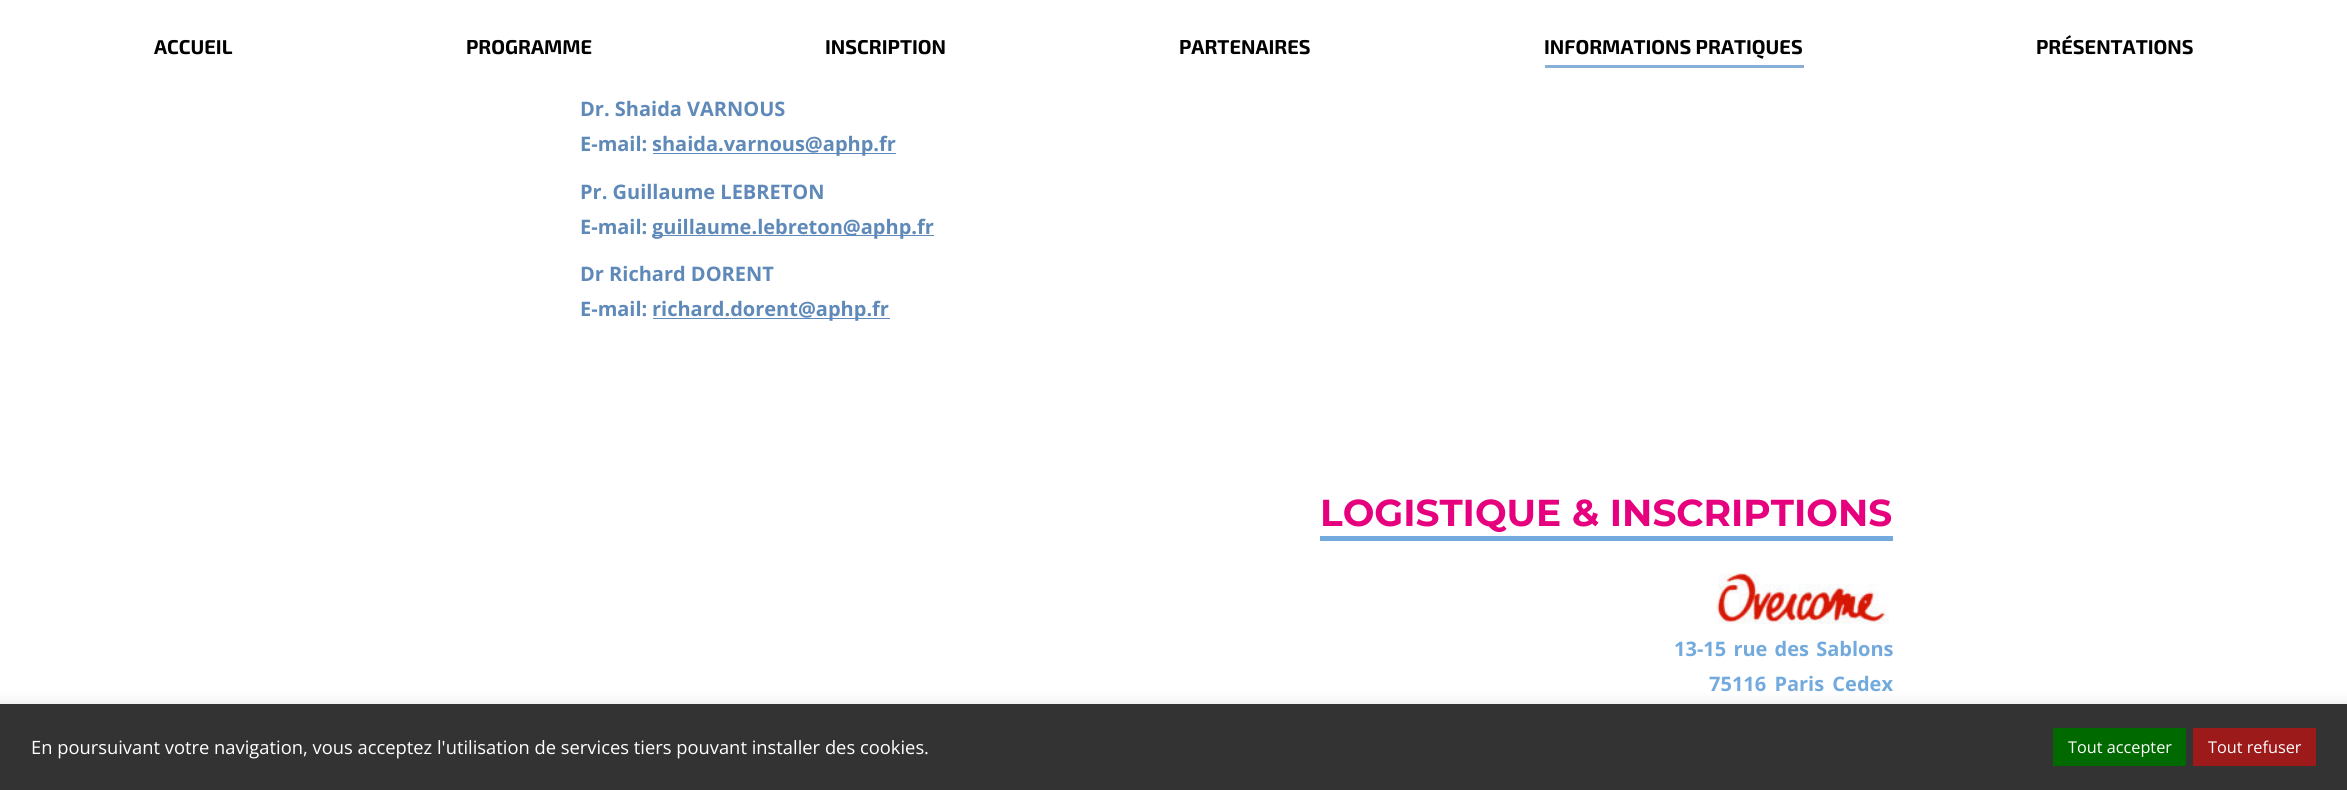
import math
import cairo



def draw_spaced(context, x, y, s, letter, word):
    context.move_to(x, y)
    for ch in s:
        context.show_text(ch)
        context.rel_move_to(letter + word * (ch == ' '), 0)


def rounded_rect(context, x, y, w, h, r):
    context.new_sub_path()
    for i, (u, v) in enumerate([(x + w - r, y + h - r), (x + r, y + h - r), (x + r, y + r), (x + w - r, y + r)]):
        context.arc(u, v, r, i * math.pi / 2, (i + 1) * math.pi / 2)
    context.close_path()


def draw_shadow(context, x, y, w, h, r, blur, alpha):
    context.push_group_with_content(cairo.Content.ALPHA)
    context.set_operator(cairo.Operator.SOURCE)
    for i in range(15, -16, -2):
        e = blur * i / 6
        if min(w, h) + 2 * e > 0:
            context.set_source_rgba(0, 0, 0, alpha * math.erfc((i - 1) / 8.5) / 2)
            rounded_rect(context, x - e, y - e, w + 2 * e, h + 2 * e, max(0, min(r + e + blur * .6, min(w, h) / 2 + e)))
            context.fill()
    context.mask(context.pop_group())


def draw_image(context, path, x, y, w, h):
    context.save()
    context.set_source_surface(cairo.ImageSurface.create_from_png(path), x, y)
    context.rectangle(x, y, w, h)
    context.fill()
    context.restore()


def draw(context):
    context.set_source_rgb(1, 1, 1)
    context.paint()
    context.set_source_rgb(135 / 255, 175 / 255, 216 / 255)
    context.rectangle(1545, 65, 259, 3)
    context.fill()
    context.set_source_rgb(94 / 255, 137 / 255, 184 / 255)
    context.rectangle(653, 153, 243, 1)
    context.fill()
    context.rectangle(653, 235, 281, 1)
    context.fill()
    context.rectangle(653, 318, 237, 1)
    context.fill()
    context.set_source_rgb(115 / 255, 170 / 255, 222 / 255)
    context.rectangle(1320, 536, 573, 4)
    context.fill()
    context.rectangle(1889, 536, 4, 5)
    context.fill()
    context.rectangle(1320, 540, 573, 1)
    context.fill()
    draw_image(context, "images/1.png", 1711, 573, 178, 51)
    context.set_source_rgb(172 / 255, 171 / 255, 171 / 255)
    draw_shadow(context, 0, 703, 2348, 86, 0, 6, 0.3)
    context.set_source_rgb(51 / 255, 51 / 255, 51 / 255)
    context.rectangle(0, 704, 2347, 86)
    context.fill()
    context.set_source_rgb(0, 105 / 255, 0)
    context.rectangle(2053, 728, 133, 38)
    context.fill()
    context.set_source_rgb(156 / 255, 26 / 255, 26 / 255)
    context.rectangle(2193, 728, 123, 38)
    context.fill()
    context.select_font_face("Exo 2", cairo.FontSlant.NORMAL, cairo.FontWeight.BOLD)
    context.set_font_size(20)
    context.set_source_rgb(0, 0, 0)
    context.move_to(154, 54)
    context.show_text("ACCUEIL")
    context.move_to(466, 54)
    context.show_text("PROGRAMME")
    context.move_to(825, 54)
    context.show_text("INSCRIPTION")
    context.move_to(1179, 54)
    context.show_text("PARTENAIRES")
    context.move_to(1544, 54)
    context.show_text("INFORMATIONS PRATIQUES")
    context.move_to(2036, 54)
    context.show_text("PRÉSENTATIONS")
    context.select_font_face("Open Sans", cairo.FontSlant.NORMAL, cairo.FontWeight.BOLD)
    context.set_source_rgb(94 / 255, 137 / 255, 184 / 255)
    context.move_to(580, 116)
    context.show_text("Dr. Shaida VARNOUS")
    context.move_to(580, 151)
    context.show_text("E-mail:")
    context.move_to(652, 151)
    context.show_text("shaida.varnous@aphp.fr")
    context.move_to(580, 199)
    context.show_text("Pr. Guillaume LEBRETON")
    context.move_to(580, 234)
    context.show_text("E-mail:")
    context.move_to(652, 234)
    context.show_text("guillaume.lebreton@aphp.fr")
    context.move_to(580, 281)
    context.show_text("Dr Richard DORENT")
    context.move_to(580, 316)
    context.show_text("E-mail:")
    context.move_to(652, 316)
    context.show_text("richard.dorent@aphp.fr")
    context.select_font_face("Montserrat", cairo.FontSlant.NORMAL, cairo.FontWeight.BOLD)
    context.set_font_size(37.5)
    context.set_source_rgb(230 / 255, 0, 126 / 255)
    context.move_to(1320, 526)
    context.show_text("LOGISTIQUE & INSCRIPTIONS")
    context.select_font_face("Open Sans", cairo.FontSlant.NORMAL, cairo.FontWeight.BOLD)
    context.set_font_size(20)
    context.set_source_rgb(115 / 255, 170 / 255, 222 / 255)
    draw_spaced(context, 1674, 656, "13-15 rue des Sablons", 0, 2)
    draw_spaced(context, 1709, 691, "75116 Paris Cedex", 0, 3)
    context.select_font_face("Open Sans")
    context.set_font_size(18.35)
    context.set_source_rgb(1, 1, 1)
    context.move_to(31, 754)
    context.show_text("En poursuivant votre navigation, vous acceptez l'utilisation de services tiers pouvant installer des cookies.")
    context.set_font_size(16.25)
    context.move_to(2068, 753)
    context.show_text("Tout accepter")
    context.move_to(2208, 753)
    context.show_text("Tout refuser")


surface = cairo.ImageSurface(cairo.Format.RGB24, 2347, 790)
context = cairo.Context(surface)
options = cairo.FontOptions()
options.set_hint_metrics(cairo.HintMetrics.OFF)
options.set_hint_style(cairo.HintStyle.NONE)
context.set_font_options(options)
context.set_miter_limit(4)
draw(context)
surface.write_to_png("out.png")
